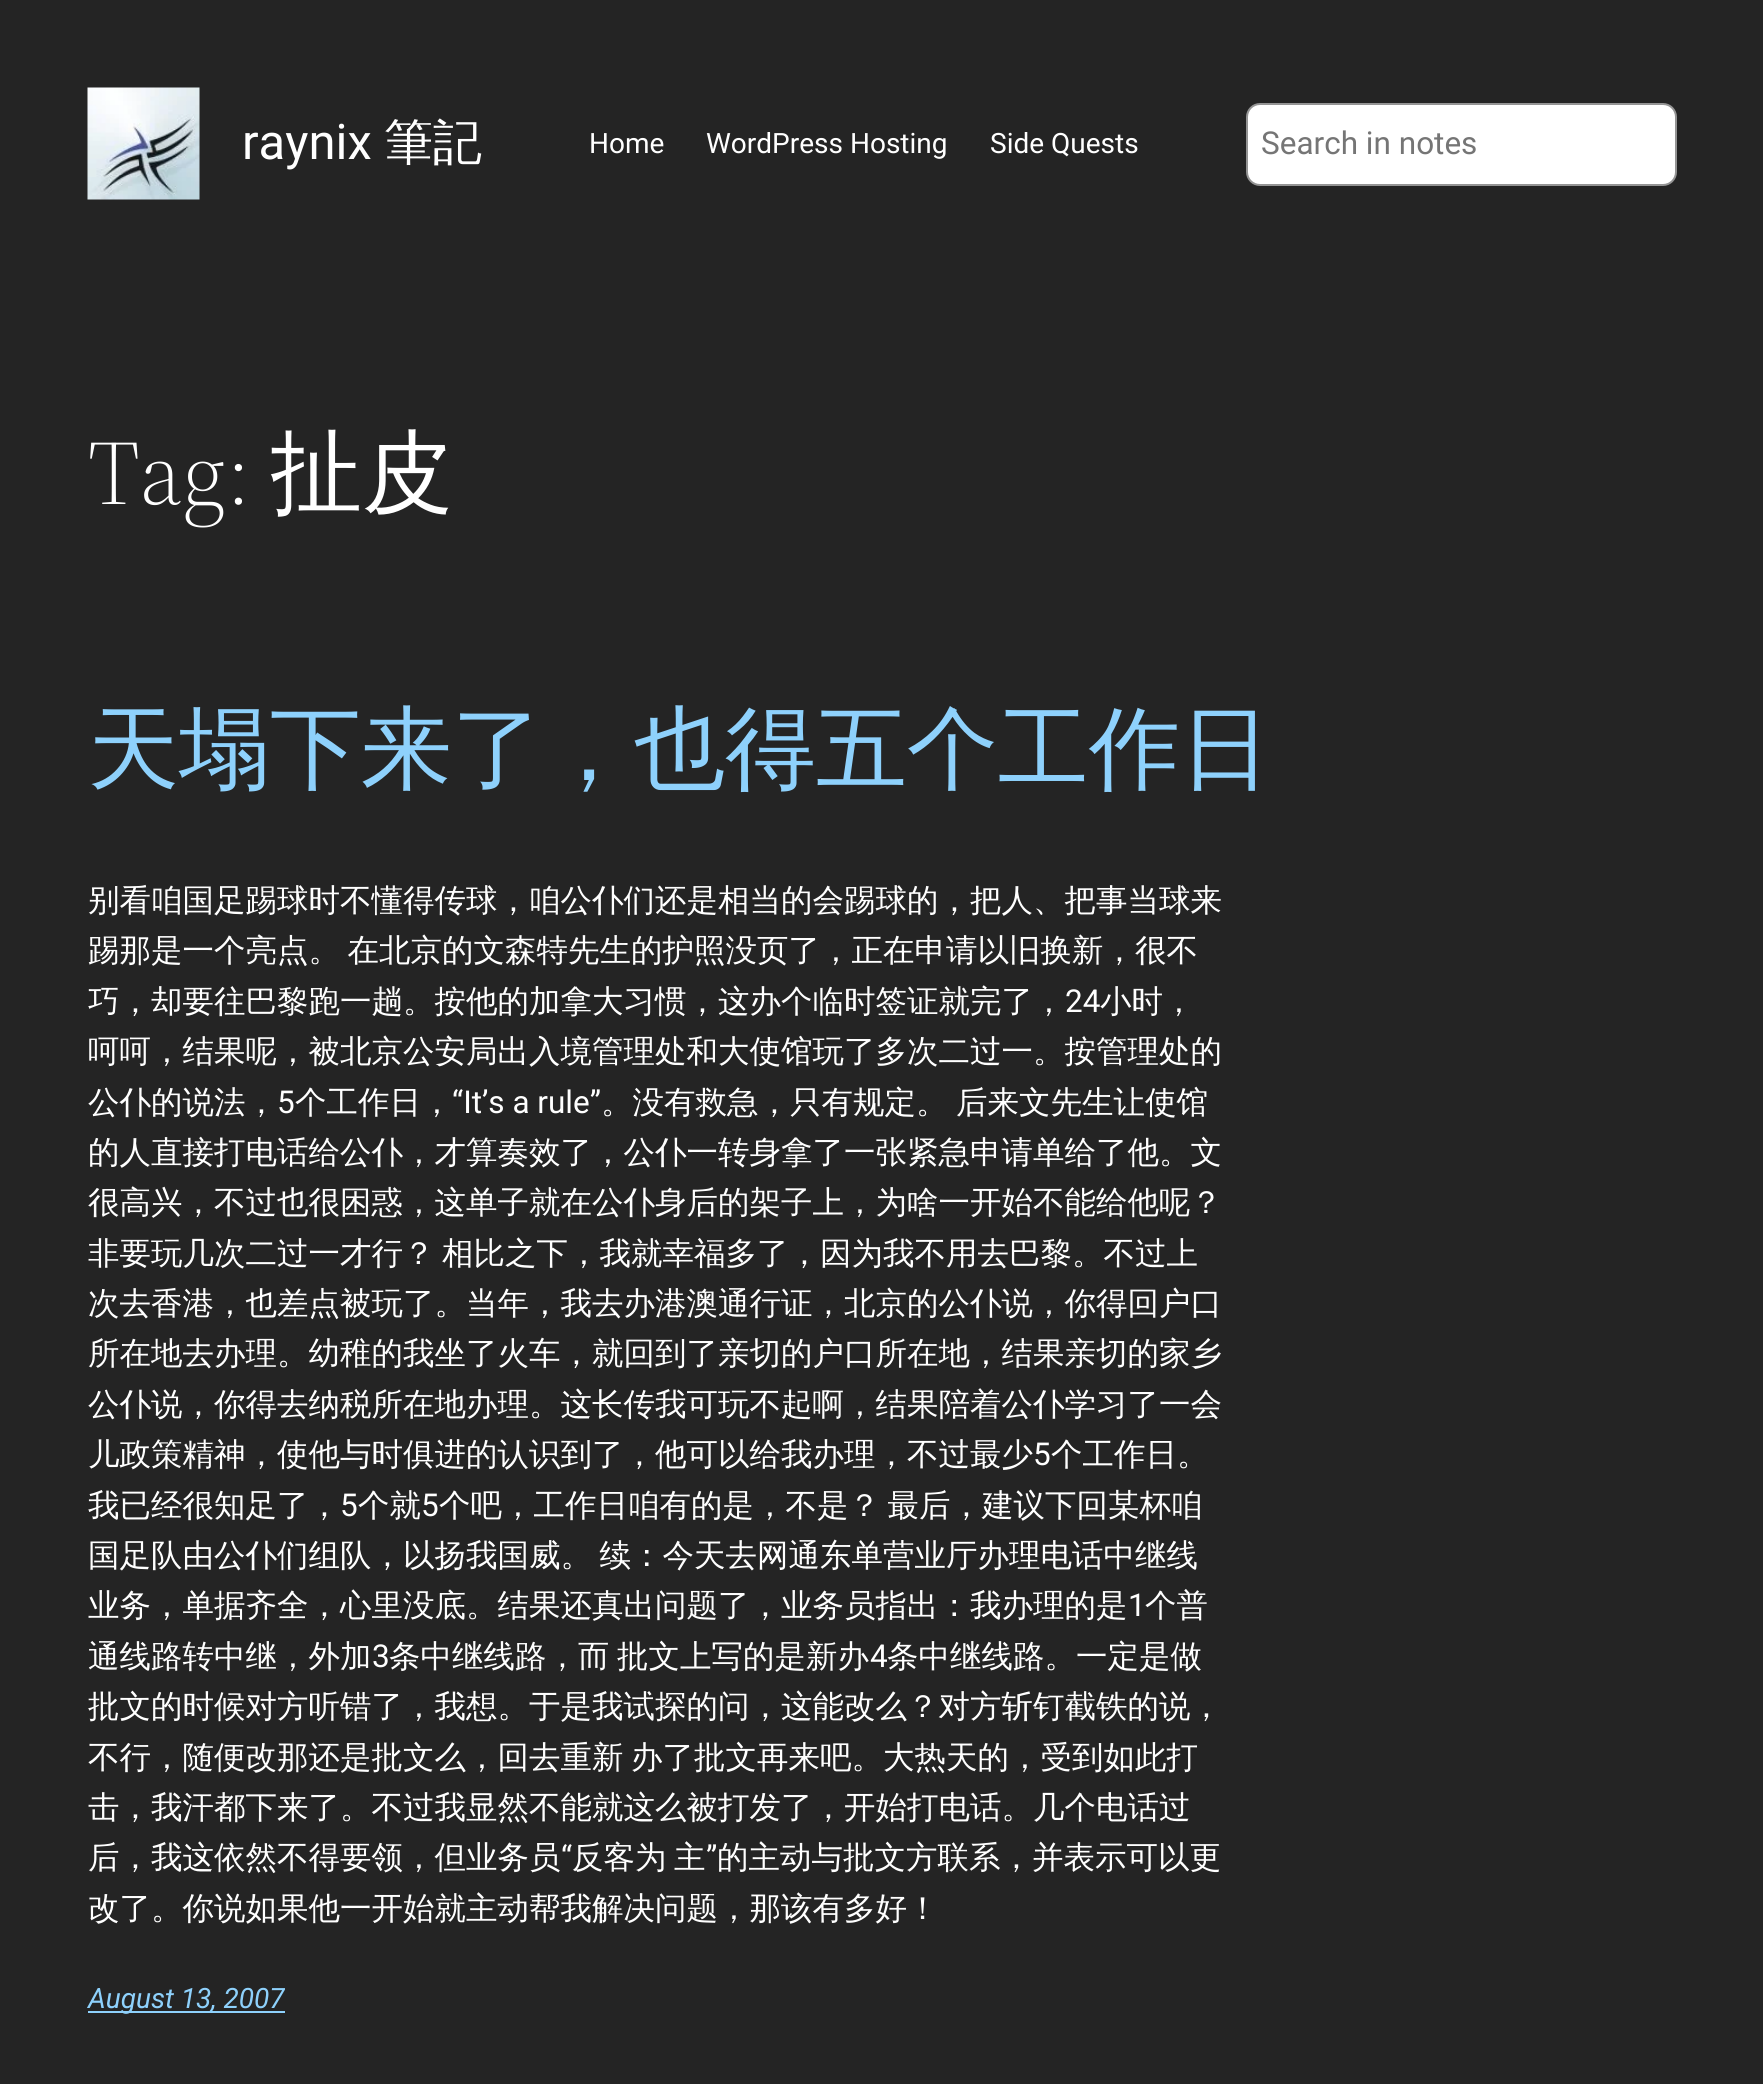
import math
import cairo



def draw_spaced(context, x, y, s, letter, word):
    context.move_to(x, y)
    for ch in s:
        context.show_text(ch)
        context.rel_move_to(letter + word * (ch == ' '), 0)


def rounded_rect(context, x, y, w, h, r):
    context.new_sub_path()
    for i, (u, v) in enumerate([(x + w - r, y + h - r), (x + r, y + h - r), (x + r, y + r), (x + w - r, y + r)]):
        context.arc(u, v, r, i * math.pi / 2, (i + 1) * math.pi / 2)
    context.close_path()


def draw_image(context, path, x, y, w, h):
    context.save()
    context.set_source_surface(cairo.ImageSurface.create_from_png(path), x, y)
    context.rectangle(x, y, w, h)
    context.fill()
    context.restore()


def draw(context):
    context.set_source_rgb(36 / 255, 36 / 255, 36 / 255)
    context.paint()
    draw_image(context, "images/1.png", 87, 87, 113, 113)
    context.set_source_rgb(1, 1, 1)
    rounded_rect(context, 1247, 104, 429, 81, 13)
    context.fill_preserve()
    context.set_source_rgb(148 / 255, 148 / 255, 148 / 255)
    context.stroke()
    context.set_source_rgb(142 / 255, 209 / 255, 252 / 255)
    context.rectangle(88, 2011, 197, 2)
    context.fill()
    context.select_font_face("Roboto")
    context.set_font_size(49)
    context.set_source_rgb(1, 1, 1)
    context.move_to(242, 159)
    context.show_text("raynix")
    context.select_font_face("WenQuanYi Zen Hei Medium")
    context.move_to(384, 159)
    context.show_text("筆記")
    context.select_font_face("Roboto")
    context.set_font_size(28)
    context.move_to(589, 153)
    context.show_text("Home")
    context.move_to(706, 153)
    context.show_text("WordPress Hosting")
    context.move_to(990, 153)
    context.show_text("Side Quests")
    context.set_font_size(31.5)
    context.set_source_rgb(117 / 255, 117 / 255, 117 / 255)
    context.move_to(1261, 154)
    context.show_text("Search in notes")
    context.select_font_face("Source Serif 4 Light")
    context.set_font_size(91)
    context.set_source_rgb(1, 1, 1)
    context.move_to(88, 504)
    context.show_text("Tag:")
    context.select_font_face("WenQuanYi Zen Hei Medium")
    context.move_to(271, 504)
    context.show_text("扯皮")
    context.set_source_rgb(142 / 255, 209 / 255, 252 / 255)
    context.move_to(88, 780)
    context.show_text("天塌下来了，也得五个工作日")
    context.set_font_size(31.5)
    context.set_source_rgb(1, 1, 1)
    context.move_to(88, 911)
    context.show_text("别看咱国足踢球时不懂得传球，咱公仆们还是相当的会踢球的，把人、把事当球来")
    draw_spaced(context, 88, 961, "踢那是一个亮点。 在北京的文森特先生的护照没页了，正在申请以旧换新，很不", 0, -2)
    context.move_to(88, 1012)
    context.show_text("巧，却要往巴黎跑一趟。按他的加拿大习惯，这办个临时签证就完了，")
    context.select_font_face("Roboto")
    context.move_to(1065, 1012)
    context.show_text("24")
    context.select_font_face("WenQuanYi Zen Hei Medium")
    context.move_to(1100, 1012)
    context.show_text("小时，")
    context.move_to(88, 1062)
    context.show_text("呵呵，结果呢，被北京公安局出入境管理处和大使馆玩了多次二过一。按管理处的")
    context.move_to(88, 1113)
    context.show_text("公仆的说法，")
    context.select_font_face("Roboto")
    context.move_to(277, 1113)
    context.show_text("5")
    context.select_font_face("WenQuanYi Zen Hei Medium")
    context.move_to(295, 1113)
    context.show_text("个工作日，")
    context.select_font_face("Roboto")
    context.move_to(452, 1113)
    context.show_text("“It’s a rule”")
    context.select_font_face("WenQuanYi Zen Hei Medium")
    context.move_to(601, 1113)
    context.show_text("。没有救急，只有规定。")
    context.move_to(956, 1113)
    context.show_text("后来文先生让使馆")
    context.move_to(88, 1163)
    context.show_text("的人直接打电话给公仆，才算奏效了，公仆一转身拿了一张紧急申请单给了他。文")
    context.move_to(88, 1213)
    context.show_text("很高兴，不过也很困惑，这单子就在公仆身后的架子上，为啥一开始不能给他呢？")
    draw_spaced(context, 88, 1264, "非要玩几次二过一才行？ 相比之下，我就幸福多了，因为我不用去巴黎。不过上", 0, -2)
    context.move_to(88, 1314)
    context.show_text("次去香港，也差点被玩了。当年，我去办港澳通行证，北京的公仆说，你得回户口")
    context.move_to(88, 1364)
    context.show_text("所在地去办理。幼稚的我坐了火车，就回到了亲切的户口所在地，结果亲切的家乡")
    context.move_to(88, 1415)
    context.show_text("公仆说，你得去纳税所在地办理。这长传我可玩不起啊，结果陪着公仆学习了一会")
    context.move_to(88, 1465)
    context.show_text("儿政策精神，使他与时俱进的认识到了，他可以给我办理，不过最少")
    context.select_font_face("Roboto")
    context.move_to(1033, 1465)
    context.show_text("5")
    context.select_font_face("WenQuanYi Zen Hei Medium")
    context.move_to(1051, 1465)
    context.show_text("个工作日。")
    context.move_to(88, 1516)
    context.show_text("我已经很知足了，")
    context.select_font_face("Roboto")
    context.move_to(340, 1516)
    context.show_text("5")
    context.select_font_face("WenQuanYi Zen Hei Medium")
    context.move_to(358, 1516)
    context.show_text("个就")
    context.select_font_face("Roboto")
    context.move_to(421, 1516)
    context.show_text("5")
    context.select_font_face("WenQuanYi Zen Hei Medium")
    draw_spaced(context, 439, 1516, "个吧，工作日咱有的是，不是？ 最后，建议下回某杯咱", 0, -2)
    draw_spaced(context, 88, 1566, "国足队由公仆们组队，以扬我国威。 续：今天去网通东单营业厅办理电话中继线", 0, -2)
    context.move_to(88, 1616)
    context.show_text("业务，单据齐全，心里没底。结果还真出问题了，业务员指出：我办理的是")
    context.select_font_face("Roboto")
    context.move_to(1128, 1616)
    context.show_text("1")
    context.select_font_face("WenQuanYi Zen Hei Medium")
    context.move_to(1145, 1616)
    context.show_text("个普")
    context.move_to(88, 1667)
    context.show_text("通线路转中继，外加")
    context.select_font_face("Roboto")
    context.move_to(372, 1667)
    context.show_text("3")
    context.select_font_face("WenQuanYi Zen Hei Medium")
    draw_spaced(context, 389, 1667, "条中继线路，而 批文上写的是新办", 0, -2)
    context.select_font_face("Roboto")
    context.move_to(870, 1667)
    context.show_text("4")
    context.select_font_face("WenQuanYi Zen Hei Medium")
    context.move_to(887, 1667)
    context.show_text("条中继线路。一定是做")
    context.move_to(88, 1717)
    context.show_text("批文的时候对方听错了，我想。于是我试探的问，这能改么？对方斩钉截铁的说，")
    draw_spaced(context, 88, 1768, "不行，随便改那还是批文么，回去重新 办了批文再来吧。大热天的，受到如此打", 0, -2)
    context.move_to(88, 1818)
    context.show_text("击，我汗都下来了。不过我显然不能就这么被打发了，开始打电话。几个电话过")
    context.move_to(88, 1868)
    context.show_text("后，我这依然不得要领，但业务员")
    context.select_font_face("Roboto")
    context.move_to(561, 1868)
    context.show_text("“")
    context.select_font_face("WenQuanYi Zen Hei Medium")
    draw_spaced(context, 572, 1868, "反客为 主", 0, -2)
    context.select_font_face("Roboto")
    context.move_to(706, 1868)
    context.show_text("”")
    context.select_font_face("WenQuanYi Zen Hei Medium")
    context.move_to(717, 1868)
    context.show_text("的主动与批文方联系，并表示可以更")
    context.move_to(88, 1919)
    context.show_text("改了。你说如果他一开始就主动帮我解决问题，那该有多好！")
    context.select_font_face("Roboto", cairo.FontSlant.ITALIC)
    context.set_font_size(28)
    context.set_source_rgb(142 / 255, 209 / 255, 252 / 255)
    context.move_to(88, 2008)
    context.show_text("August 13, 2007")


surface = cairo.ImageSurface(cairo.Format.RGB24, 1763, 2084)
context = cairo.Context(surface)
options = cairo.FontOptions()
options.set_hint_metrics(cairo.HintMetrics.OFF)
options.set_hint_style(cairo.HintStyle.NONE)
context.set_font_options(options)
context.set_miter_limit(4)
draw(context)
surface.write_to_png("out.png")
